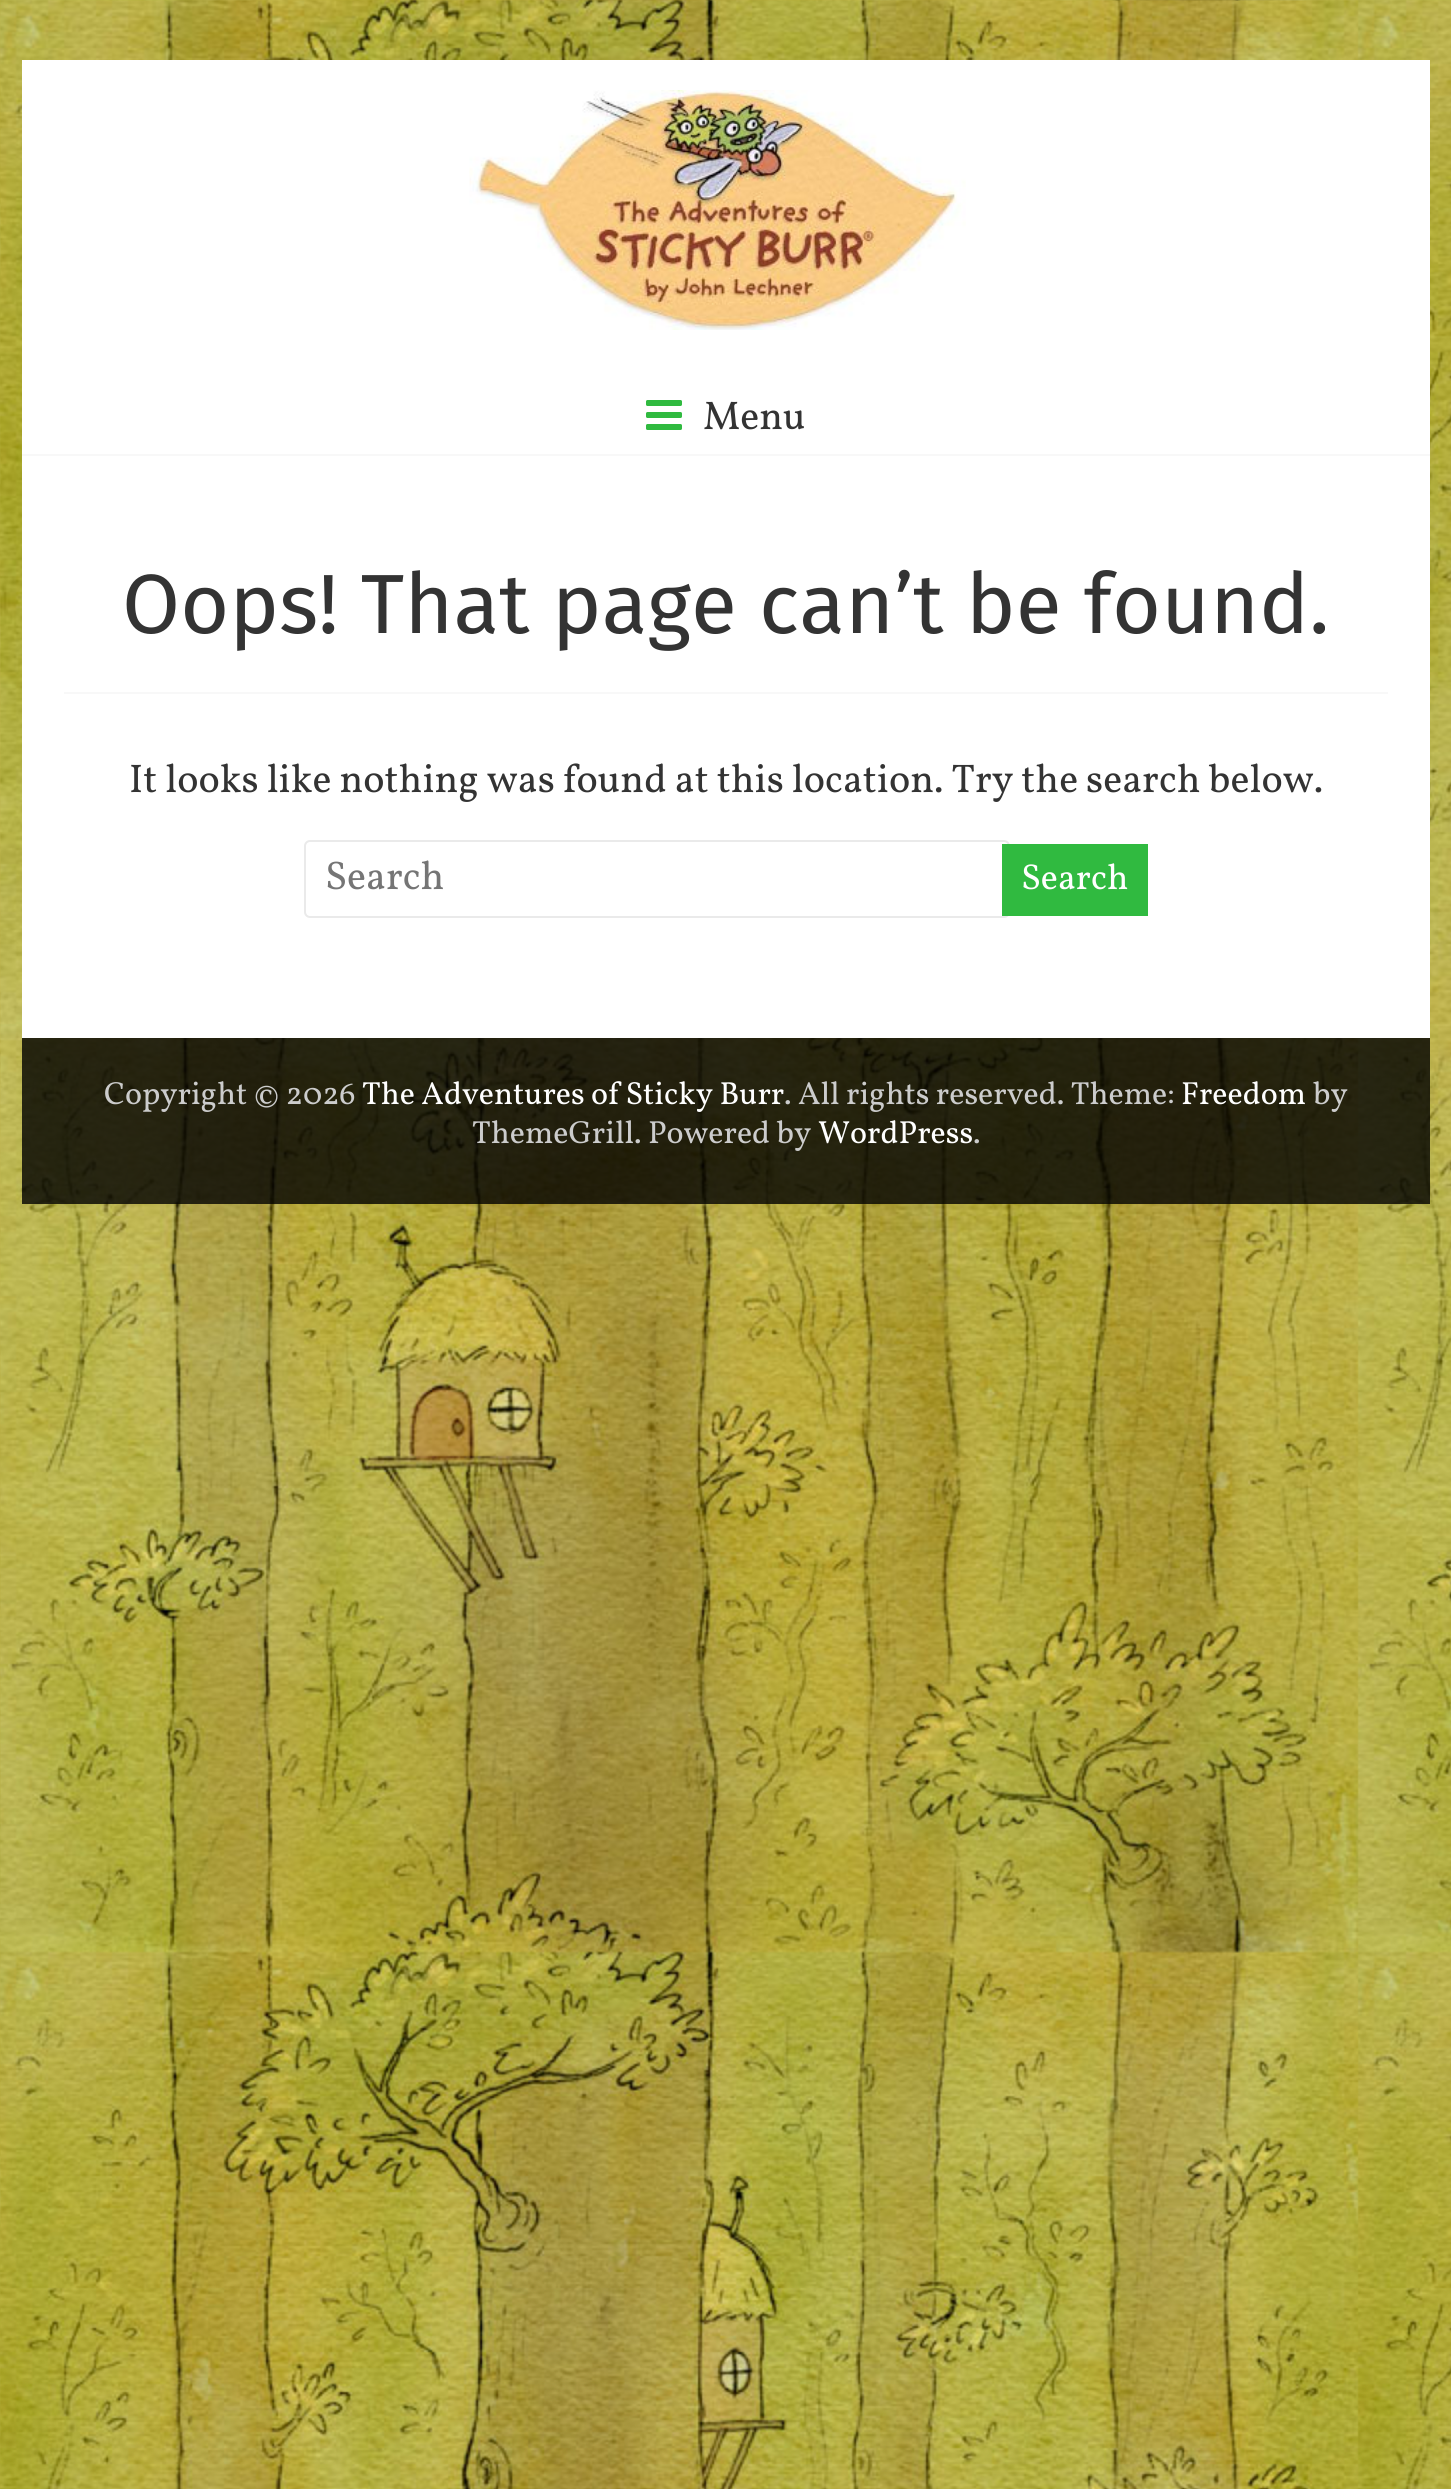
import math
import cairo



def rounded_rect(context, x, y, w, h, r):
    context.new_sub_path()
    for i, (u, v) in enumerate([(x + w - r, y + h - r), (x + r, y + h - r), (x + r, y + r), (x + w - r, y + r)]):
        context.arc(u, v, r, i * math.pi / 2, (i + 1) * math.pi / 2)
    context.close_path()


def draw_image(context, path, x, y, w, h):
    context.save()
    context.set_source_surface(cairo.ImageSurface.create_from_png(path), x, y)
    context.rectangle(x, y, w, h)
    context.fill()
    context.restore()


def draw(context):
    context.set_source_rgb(1, 1, 1)
    context.paint()
    draw_image(context, "images/1.png", 0, 0, 1451, 2489)
    context.set_source_rgb(1, 1, 1)
    context.rectangle(22, 60, 1408, 394)
    context.fill()
    draw_image(context, "images/2.png", 469, 90, 497, 240)
    context.set_source_rgb(248 / 255, 248 / 255, 248 / 255)
    context.rectangle(22, 454, 1408, 2)
    context.fill()
    draw_image(context, "images/3.png", 646, 400, 36, 30)
    context.set_source_rgb(1, 1, 1)
    context.rectangle(22, 456, 1408, 582)
    context.fill()
    context.set_source_rgb(248 / 255, 248 / 255, 248 / 255)
    context.rectangle(64, 692, 1324, 2)
    context.fill()
    rounded_rect(context, 305, 841, 704, 76, 5)
    context.set_source_rgb(234 / 255, 234 / 255, 234 / 255)
    context.stroke()
    context.set_source_rgb(48 / 255, 186 / 255, 64 / 255)
    context.rectangle(1002, 844, 146, 72)
    context.fill()
    context.set_source_rgba(0, 0, 0, 0.8)
    context.rectangle(22, 1038, 1408, 166)
    context.fill()
    context.select_font_face("Vollkorn")
    context.set_font_size(40)
    context.set_source_rgb(51 / 255, 51 / 255, 51 / 255)
    context.move_to(703, 429)
    context.show_text("Menu")
    context.select_font_face("Fira Sans")
    context.set_font_size(84)
    context.move_to(122, 633)
    context.show_text("Oops! That page can’t be found.")
    context.select_font_face("Vollkorn")
    context.set_font_size(40)
    context.move_to(129, 792)
    context.show_text("It looks like nothing was found at this location. Try the search below.")
    context.set_source_rgb(117 / 255, 117 / 255, 117 / 255)
    context.move_to(325, 889)
    context.show_text("Search")
    context.set_font_size(36)
    context.set_source_rgb(1, 1, 1)
    context.move_to(1021, 889)
    context.show_text("Search")
    context.set_font_size(32)
    context.set_source_rgb(204 / 255, 204 / 255, 204 / 255)
    context.move_to(104, 1104)
    context.show_text("Copyright © 2026")
    context.set_source_rgb(1, 1, 1)
    context.move_to(362, 1104)
    context.show_text("The Adventures of Sticky Burr")
    context.set_source_rgb(204 / 255, 204 / 255, 204 / 255)
    context.move_to(784, 1104)
    context.show_text(". All rights reserved. Theme:")
    context.set_source_rgb(1, 1, 1)
    context.move_to(1181, 1104)
    context.show_text("Freedom")
    context.set_source_rgb(204 / 255, 204 / 255, 204 / 255)
    context.move_to(1313, 1104)
    context.show_text("by")
    context.move_to(472, 1143)
    context.show_text("ThemeGrill. Powered by")
    context.set_source_rgb(1, 1, 1)
    context.move_to(818, 1143)
    context.show_text("WordPress")
    context.set_source_rgb(204 / 255, 204 / 255, 204 / 255)
    context.move_to(973, 1143)
    context.show_text(".")


surface = cairo.ImageSurface(cairo.Format.RGB24, 1451, 2489)
context = cairo.Context(surface)
options = cairo.FontOptions()
options.set_hint_metrics(cairo.HintMetrics.OFF)
options.set_hint_style(cairo.HintStyle.NONE)
context.set_font_options(options)
context.set_miter_limit(4)
draw(context)
surface.write_to_png("out.png")
